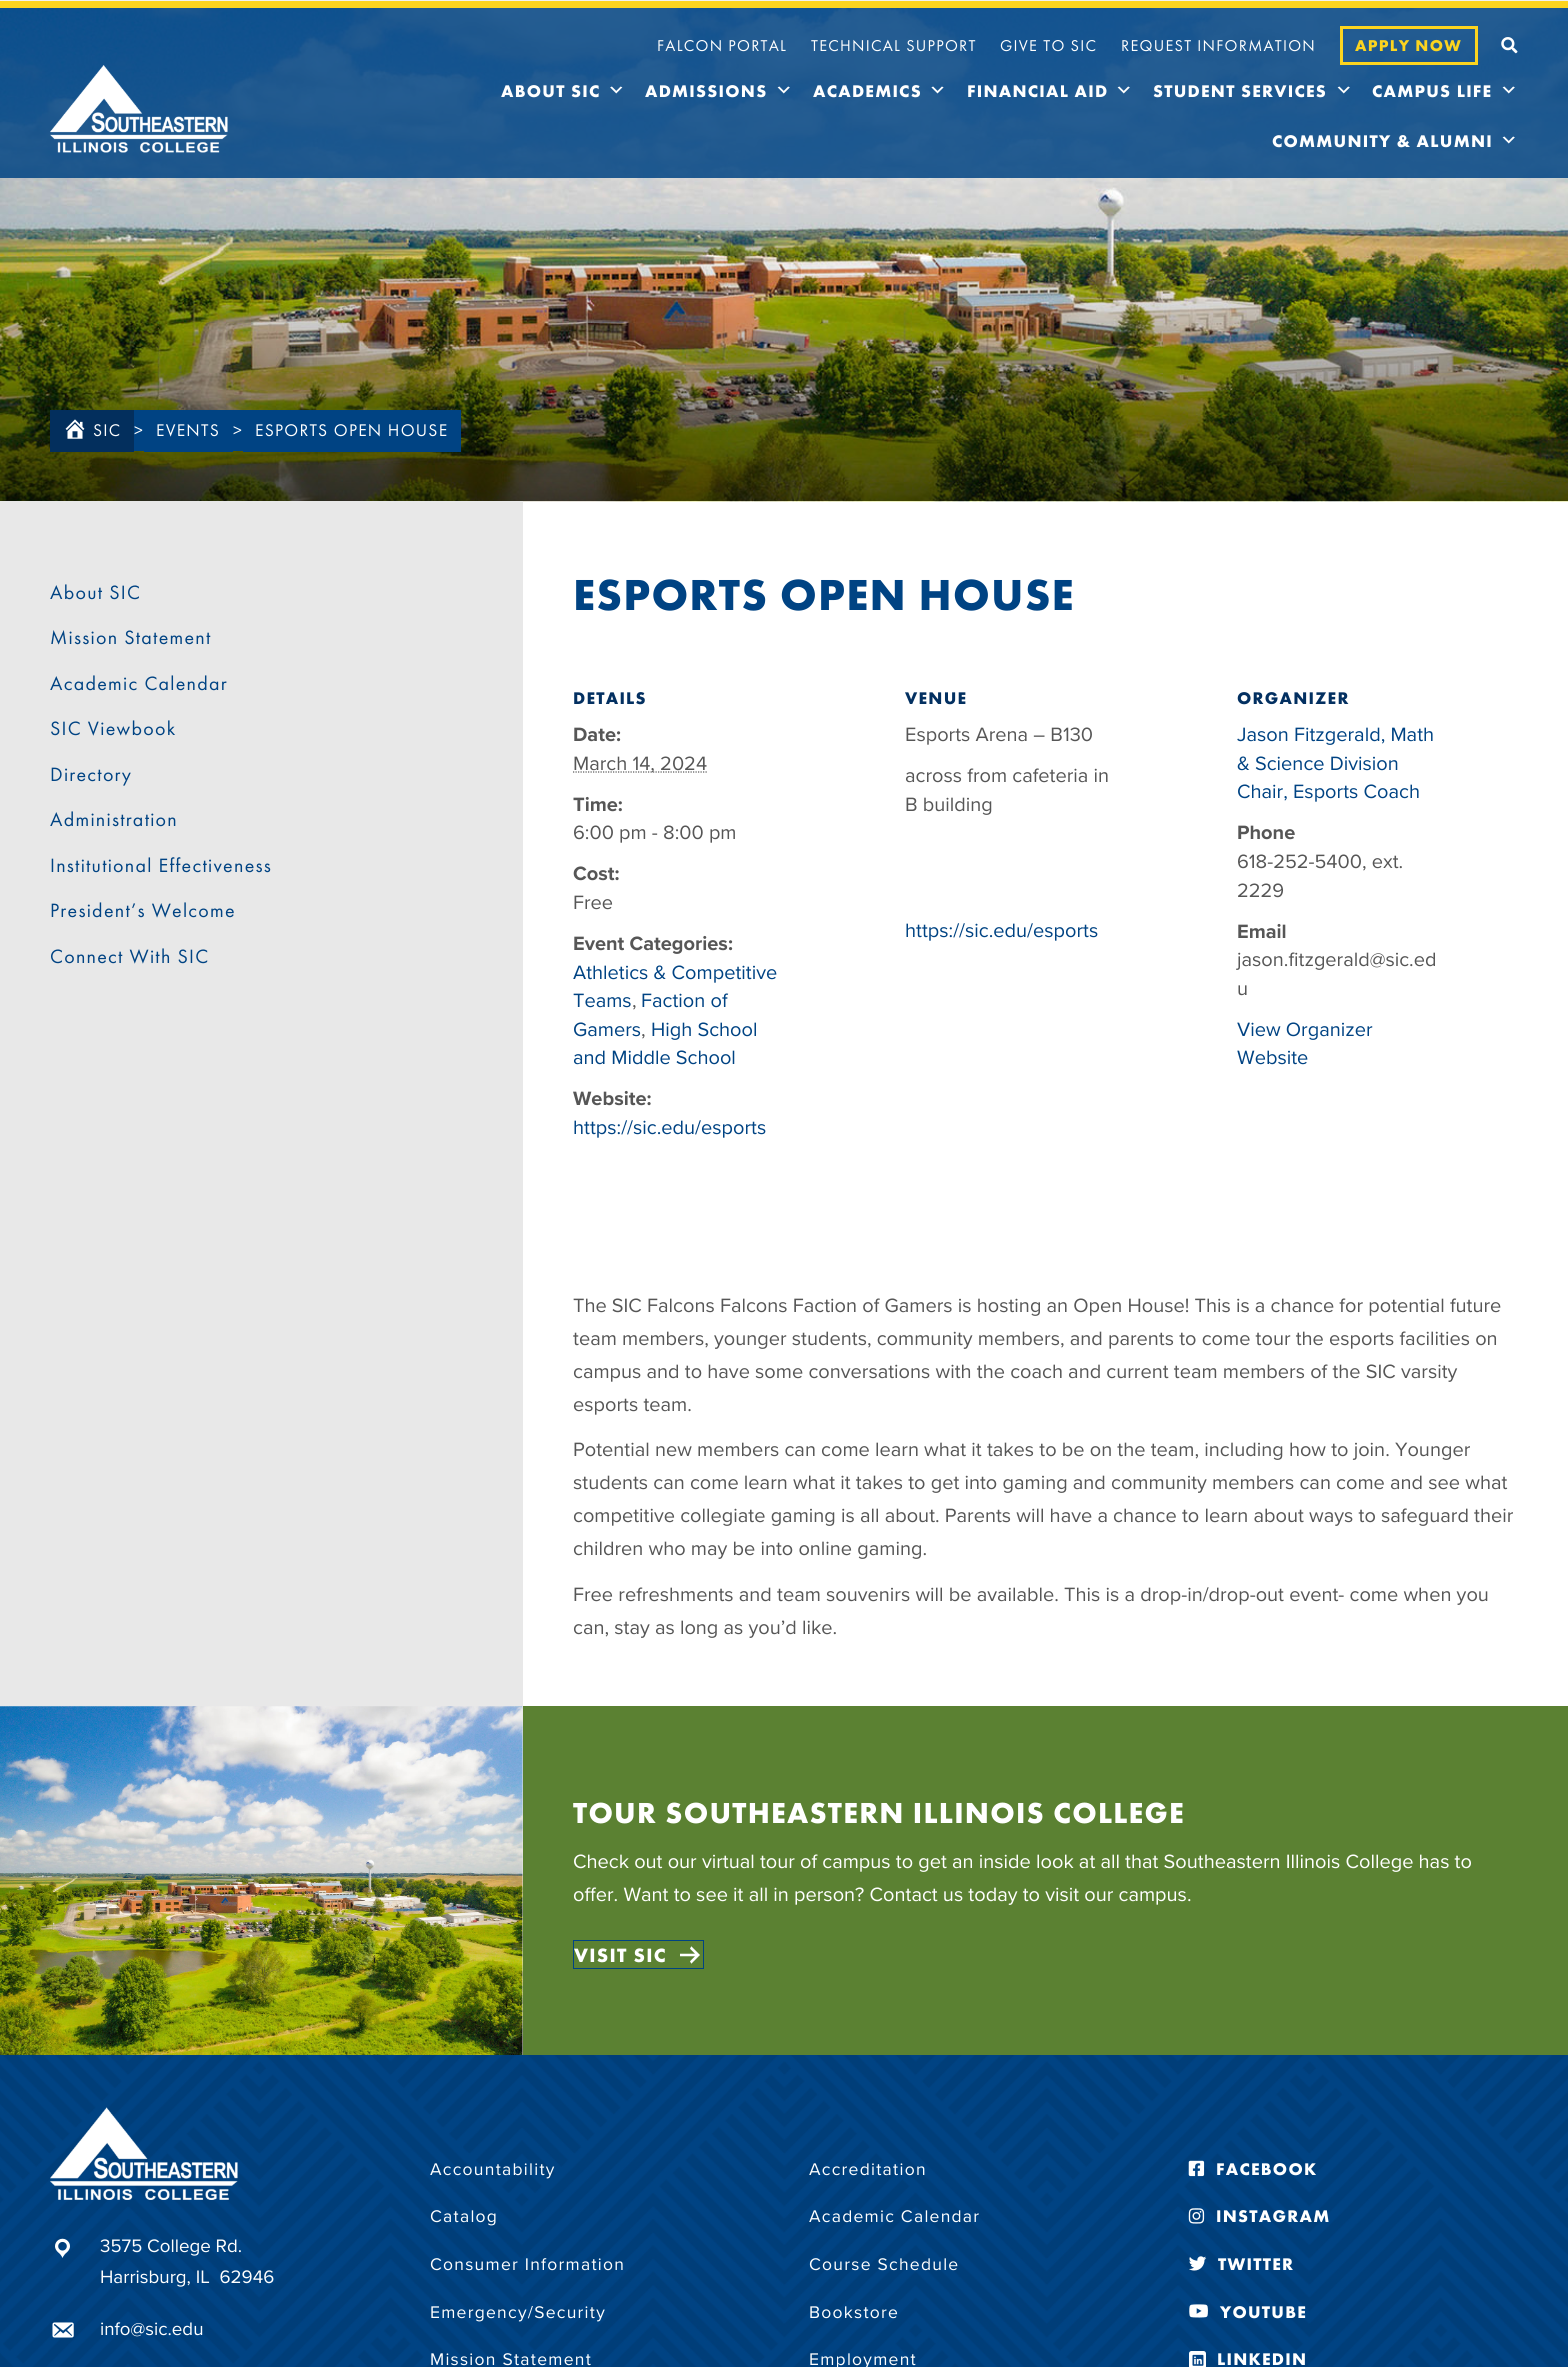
import math
import cairo



def draw_spaced(context, x, y, s, letter, word):
    context.move_to(x, y)
    for ch in s:
        context.show_text(ch)
        context.rel_move_to(letter + word * (ch == ' '), 0)


def rounded_rect(context, x, y, w, h, r):
    context.new_sub_path()
    for i, (u, v) in enumerate([(x + w - r, y + h - r), (x + r, y + h - r), (x + r, y + r), (x + w - r, y + r)]):
        context.arc(u, v, r, i * math.pi / 2, (i + 1) * math.pi / 2)
    context.close_path()


def draw_image(context, path, x, y, w, h):
    context.save()
    context.set_source_surface(cairo.ImageSurface.create_from_png(path), x, y)
    context.rectangle(x, y, w, h)
    context.fill()
    context.restore()


def draw(context):
    context.set_source_rgb(242 / 255, 242 / 255, 242 / 255)
    context.paint()
    context.set_source_rgb(1, 1, 1)
    context.rectangle(523, 501, 1045, 1205)
    context.fill()
    draw_image(context, "images/10.png", 0, 8, 1568, 494)
    context.set_source_rgba(0, 67 / 255, 131 / 255, 0.85)
    context.rectangle(0, 8, 1568, 170)
    context.fill()
    context.set_source_rgb(252 / 255, 212 / 255, 31 / 255)
    context.rectangle(0, 1, 1568, 7)
    context.fill()
    draw_image(context, "images/1.png", 50, 65, 178, 88)
    context.rectangle(1341.5, 27.5, 135, 36)
    context.set_line_width(3)
    context.stroke()
    draw_image(context, "images/2.png", 1501, 37, 17, 17)
    draw_image(context, "images/3.png", 610, 86, 13, 8)
    draw_image(context, "images/4.png", 777, 86, 13, 8)
    draw_image(context, "images/5.png", 931, 86, 13, 8)
    draw_image(context, "images/6.png", 1117, 86, 13, 8)
    draw_image(context, "images/7.png", 1337, 86, 13, 8)
    draw_image(context, "images/8.png", 1502, 86, 13, 8)
    draw_image(context, "images/9.png", 1502, 136, 13, 8)
    gradient = cairo.LinearGradient(784, 501, 784, 1.2)
    gradient.add_color_stop_rgba(0, 0, 0, 0, 0.65)
    gradient.add_color_stop_rgba(0.5, 0, 0, 0, 0)
    context.set_source(gradient)
    context.rectangle(0, 259, 1568, 242)
    context.fill()
    context.set_source_rgb(3 / 255, 47 / 255, 93 / 255)
    context.rectangle(50, 410, 84, 42)
    context.fill()
    draw_image(context, "images/11.png", 65, 419, 20, 20)
    context.set_source_rgb(0, 67 / 255, 131 / 255)
    context.rectangle(134, 410, 10, 41)
    context.fill()
    context.rectangle(144, 410, 89, 42)
    context.fill()
    context.rectangle(233, 410, 10, 41)
    context.fill()
    context.rectangle(243, 410, 218, 42)
    context.fill()
    context.set_source_rgb(232 / 255, 232 / 255, 232 / 255)
    context.rectangle(0, 501, 523, 1554)
    context.fill()
    context.new_path()
    context.move_to(573, 772)
    context.line_to(707, 772)
    context.set_source_rgb(86 / 255, 86 / 255, 86 / 255)
    context.set_line_width(1.2)
    context.set_dash([1.25, 1.25])
    context.stroke()
    draw_image(context, "images/12.png", 0, 1706, 523, 349)
    context.set_source_rgb(91 / 255, 129 / 255, 50 / 255)
    context.rectangle(523, 1706, 1045, 349)
    context.fill()
    context.rectangle(573.5, 1940.5, 130, 28)
    context.set_source_rgb(0, 67 / 255, 131 / 255)
    context.set_line_width(1)
    context.set_dash([])
    context.stroke()
    draw_image(context, "images/13.png", 680, 1946, 20, 18)
    context.rectangle(0, 2055, 1568, 312)
    context.fill()
    draw_image(context, "images/14.png", 0, 2055, 1568, 312)
    draw_image(context, "images/15.png", 50, 2107, 188, 93)
    draw_image(context, "images/16.png", 55, 2238, 15, 20)
    draw_image(context, "images/17.png", 52, 2322, 22, 16)
    draw_image(context, "images/18.png", 1188, 2160, 17, 17)
    draw_image(context, "images/19.png", 1188, 2208, 17, 16)
    draw_image(context, "images/20.png", 1189, 2256, 18, 15)
    draw_image(context, "images/21.png", 1189, 2304, 19, 14)
    context.set_source_rgb(1, 1, 1)
    rounded_rect(context, 1189, 2351, 17, 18, 2.5)
    context.fill()
    draw_image(context, "images/22.png", 1192, 2354, 12, 12)
    context.select_font_face("Futura PT")
    context.set_font_size(16.25)
    draw_spaced(context, 657, 51, "FALCON PORTAL", 1.25, 0)
    draw_spaced(context, 811, 51, "TECHNICAL SUPPORT", 1.25, 0)
    draw_spaced(context, 1000, 51, "GIVE TO SIC", 1.25, 0)
    draw_spaced(context, 1121, 51, "REQUEST INFORMATION", 1.25, 0)
    context.select_font_face("Futura PT", cairo.FontSlant.NORMAL, cairo.FontWeight.BOLD)
    context.set_source_rgb(252 / 255, 212 / 255, 31 / 255)
    draw_spaced(context, 1355, 51, "APPLY NOW", 1.25, 0)
    context.set_font_size(17.5)
    context.set_source_rgb(1, 1, 1)
    draw_spaced(context, 501, 97, "ABOUT SIC", 1.25, 0)
    draw_spaced(context, 645, 97, "ADMISSIONS", 1.25, 0)
    draw_spaced(context, 813, 97, "ACADEMICS", 1.25, 0)
    draw_spaced(context, 967, 97, "FINANCIAL AID", 1.25, 0)
    draw_spaced(context, 1153, 97, "STUDENT SERVICES", 1.25, 0)
    draw_spaced(context, 1372, 97, "CAMPUS LIFE", 1.25, 0)
    draw_spaced(context, 1272, 147, "COMMUNITY & ALUMNI", 1.25, 0)
    context.select_font_face("Futura PT")
    draw_spaced(context, 93, 436, "SIC", 1.25, 0)
    draw_spaced(context, 134, 436, ">", 1.25, 0)
    draw_spaced(context, 156, 436, "EVENTS", 1.25, 0)
    draw_spaced(context, 233, 436, ">", 1.25, 0)
    draw_spaced(context, 255, 436, "ESPORTS OPEN HOUSE", 1.25, 0)
    context.set_font_size(20)
    context.set_source_rgb(0, 67 / 255, 131 / 255)
    draw_spaced(context, 50, 599, "About SIC", 1.25, 0)
    draw_spaced(context, 50, 644, "Mission Statement", 1.25, 0)
    draw_spaced(context, 50, 690, "Academic Calendar", 1.25, 0)
    draw_spaced(context, 50, 735, "SIC Viewbook", 1.25, 0)
    draw_spaced(context, 50, 781, "Directory", 1.25, 0)
    draw_spaced(context, 50, 826, "Administration", 1.25, 0)
    draw_spaced(context, 50, 872, "Institutional Effectiveness", 1.25, 0)
    draw_spaced(context, 50, 917, "President’s Welcome", 1.25, 0)
    draw_spaced(context, 50, 963, "Connect With SIC", 1.25, 0)
    context.select_font_face("Futura PT", cairo.FontSlant.NORMAL, cairo.FontWeight.BOLD)
    context.set_font_size(45)
    draw_spaced(context, 573, 610, "ESPORTS OPEN HOUSE", 1.25, 0)
    context.set_font_size(17.5)
    context.set_source_rgb(3 / 255, 48 / 255, 97 / 255)
    draw_spaced(context, 573, 704, "DETAILS", 1.25, 0)
    context.select_font_face("Proxima Nova", cairo.FontSlant.NORMAL, cairo.FontWeight.BOLD)
    context.set_font_size(20)
    context.set_source_rgb(86 / 255, 86 / 255, 86 / 255)
    context.move_to(573, 741)
    context.show_text("Date:")
    context.select_font_face("Proxima Nova")
    context.move_to(573, 770)
    context.show_text("March 14, 2024")
    context.select_font_face("Proxima Nova", cairo.FontSlant.NORMAL, cairo.FontWeight.BOLD)
    context.move_to(573, 811)
    context.show_text("Time:")
    context.select_font_face("Proxima Nova")
    context.move_to(573, 839)
    context.show_text("6:00 pm - 8:00 pm")
    context.select_font_face("Proxima Nova", cairo.FontSlant.NORMAL, cairo.FontWeight.BOLD)
    context.move_to(573, 880)
    context.show_text("Cost:")
    context.select_font_face("Proxima Nova")
    context.move_to(573, 909)
    context.show_text("Free")
    context.select_font_face("Proxima Nova", cairo.FontSlant.NORMAL, cairo.FontWeight.BOLD)
    context.move_to(573, 950)
    context.show_text("Event Categories:")
    context.select_font_face("Proxima Nova")
    context.set_source_rgb(0, 67 / 255, 131 / 255)
    context.move_to(573, 979)
    context.show_text("Athletics & Competitive")
    context.move_to(573, 1007)
    context.show_text("Teams")
    context.set_source_rgb(86 / 255, 86 / 255, 86 / 255)
    context.move_to(632, 1007)
    context.show_text(",")
    context.set_source_rgb(0, 67 / 255, 131 / 255)
    context.move_to(641, 1007)
    context.show_text("Faction of")
    context.move_to(573, 1036)
    context.show_text("Gamers")
    context.set_source_rgb(86 / 255, 86 / 255, 86 / 255)
    context.move_to(641, 1036)
    context.show_text(",")
    context.set_source_rgb(0, 67 / 255, 131 / 255)
    context.move_to(651, 1036)
    context.show_text("High School")
    context.move_to(573, 1064)
    context.show_text("and Middle School")
    context.select_font_face("Proxima Nova", cairo.FontSlant.NORMAL, cairo.FontWeight.BOLD)
    context.set_source_rgb(86 / 255, 86 / 255, 86 / 255)
    context.move_to(573, 1105)
    context.show_text("Website:")
    context.select_font_face("Proxima Nova")
    context.set_source_rgb(0, 67 / 255, 131 / 255)
    context.move_to(573, 1134)
    context.show_text("https://sic.edu/esports")
    context.select_font_face("Futura PT", cairo.FontSlant.NORMAL, cairo.FontWeight.BOLD)
    context.set_font_size(17.5)
    context.set_source_rgb(3 / 255, 48 / 255, 97 / 255)
    draw_spaced(context, 905, 704, "VENUE", 1.25, 0)
    context.select_font_face("Proxima Nova")
    context.set_font_size(20)
    context.set_source_rgb(86 / 255, 86 / 255, 86 / 255)
    context.move_to(905, 741)
    context.show_text("Esports Arena – B130")
    context.move_to(905, 782)
    context.show_text("across from cafeteria in")
    context.move_to(905, 811)
    context.show_text("B building")
    context.set_source_rgb(0, 67 / 255, 131 / 255)
    context.move_to(905, 937)
    context.show_text("https://sic.edu/esports")
    context.select_font_face("Futura PT", cairo.FontSlant.NORMAL, cairo.FontWeight.BOLD)
    context.set_font_size(17.5)
    context.set_source_rgb(3 / 255, 48 / 255, 97 / 255)
    draw_spaced(context, 1237, 704, "ORGANIZER", 1.25, 0)
    context.select_font_face("Proxima Nova")
    context.set_font_size(20)
    context.set_source_rgb(0, 67 / 255, 131 / 255)
    context.move_to(1237, 741)
    context.show_text("Jason Fitzgerald, Math")
    context.move_to(1237, 770)
    context.show_text("& Science Division")
    context.move_to(1237, 798)
    context.show_text("Chair, Esports Coach")
    context.select_font_face("Proxima Nova", cairo.FontSlant.NORMAL, cairo.FontWeight.BOLD)
    context.set_source_rgb(86 / 255, 86 / 255, 86 / 255)
    context.move_to(1237, 839)
    context.show_text("Phone")
    context.select_font_face("Proxima Nova")
    context.move_to(1237, 868)
    context.show_text("618-252-5400, ext.")
    context.move_to(1237, 897)
    context.show_text("2229")
    context.select_font_face("Proxima Nova", cairo.FontSlant.NORMAL, cairo.FontWeight.BOLD)
    context.move_to(1237, 938)
    context.show_text("Email")
    context.select_font_face("Proxima Nova")
    context.move_to(1237, 966)
    context.show_text("jason.fitzgerald@sic.ed")
    context.move_to(1237, 995)
    context.show_text("u")
    context.set_source_rgb(0, 67 / 255, 131 / 255)
    context.move_to(1237, 1036)
    context.show_text("View Organizer")
    context.move_to(1237, 1064)
    context.show_text("Website")
    context.set_source_rgb(86 / 255, 86 / 255, 86 / 255)
    context.move_to(573, 1312)
    context.show_text("The SIC Falcons Falcons Faction of Gamers is hosting an Open House! This is a chance for potential future")
    context.move_to(573, 1345)
    context.show_text("team members, younger students, community members, and parents to come tour the esports facilities on")
    context.move_to(573, 1378)
    context.show_text("campus and to have some conversations with the coach and current team members of the SIC varsity")
    context.move_to(573, 1411)
    context.show_text("esports team.")
    context.move_to(573, 1456)
    context.show_text("Potential new members can come learn what it takes to be on the team, including how to join. Younger")
    context.move_to(573, 1489)
    context.show_text("students can come learn what it takes to get into gaming and community members can come and see what")
    context.move_to(573, 1522)
    context.show_text("competitive collegiate gaming is all about. Parents will have a chance to learn about ways to safeguard their")
    context.move_to(573, 1555)
    context.show_text("children who may be into online gaming.")
    context.move_to(573, 1601)
    context.show_text("Free refreshments and team souvenirs will be available. This is a drop-in/drop-out event- come when you")
    context.move_to(573, 1634)
    context.show_text("can, stay as long as you’d like.")
    context.select_font_face("Futura PT", cairo.FontSlant.NORMAL, cairo.FontWeight.BOLD)
    context.set_font_size(30)
    context.set_source_rgb(1, 1, 1)
    draw_spaced(context, 573, 1823, "TOUR SOUTHEASTERN ILLINOIS COLLEGE", 1.25, 0)
    context.select_font_face("Proxima Nova")
    context.set_font_size(20)
    context.move_to(573, 1868)
    context.show_text("Check out our virtual tour of campus to get an inside look at all that Southeastern Illinois College has to")
    context.move_to(573, 1901)
    context.show_text("offer. Want to see it all in person? Contact us today to visit our campus.")
    context.select_font_face("Futura PT", cairo.FontSlant.NORMAL, cairo.FontWeight.BOLD)
    draw_spaced(context, 574, 1962, "VISIT SIC", 1.25, 0)
    context.select_font_face("Proxima Nova")
    context.set_font_size(18.75)
    context.move_to(100, 2252)
    context.show_text("3575 College Rd.")
    context.move_to(100, 2283)
    context.show_text("Harrisburg, IL  62946")
    context.move_to(100, 2335)
    context.show_text("info@sic.edu")
    context.set_font_size(17.5)
    draw_spaced(context, 430, 2175, "Accountability", 1.25, 0)
    draw_spaced(context, 430, 2222, "Catalog", 1.25, 0)
    draw_spaced(context, 430, 2270, "Consumer Information", 1.25, 0)
    draw_spaced(context, 430, 2318, "Emergency/Security", 1.25, 0)
    draw_spaced(context, 430, 2365, "Mission Statement", 1.25, 0)
    draw_spaced(context, 809, 2175, "Accreditation", 1.25, 0)
    draw_spaced(context, 809, 2222, "Academic Calendar", 1.25, 0)
    draw_spaced(context, 809, 2270, "Course Schedule", 1.25, 0)
    draw_spaced(context, 809, 2318, "Bookstore", 1.25, 0)
    draw_spaced(context, 809, 2365, "Employment", 1.25, 0)
    context.select_font_face("Futura PT", cairo.FontSlant.NORMAL, cairo.FontWeight.BOLD)
    draw_spaced(context, 1216, 2175, "FACEBOOK", 1.25, 0)
    draw_spaced(context, 1216, 2222, "INSTAGRAM", 1.25, 0)
    draw_spaced(context, 1218, 2270, "TWITTER", 1.25, 0)
    draw_spaced(context, 1220, 2318, "YOUTUBE", 1.25, 0)
    draw_spaced(context, 1217, 2365, "LINKEDIN", 1.25, 0)


surface = cairo.ImageSurface(cairo.Format.RGB24, 1568, 2367)
context = cairo.Context(surface)
options = cairo.FontOptions()
options.set_hint_metrics(cairo.HintMetrics.OFF)
options.set_hint_style(cairo.HintStyle.NONE)
context.set_font_options(options)
context.set_miter_limit(4)
draw(context)
surface.write_to_png("out.png")
